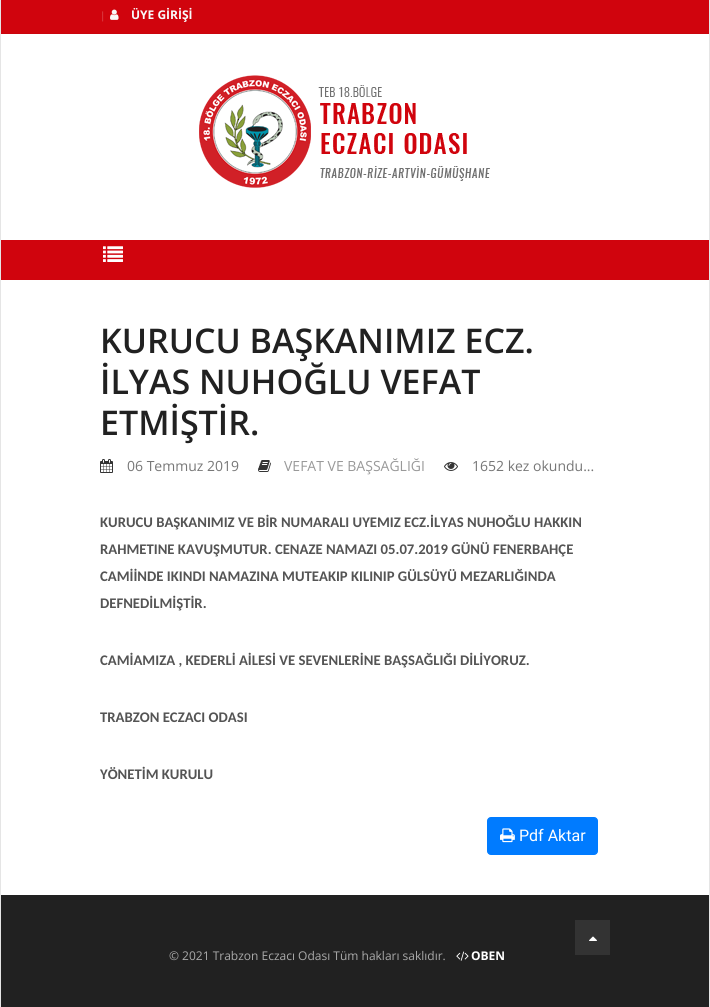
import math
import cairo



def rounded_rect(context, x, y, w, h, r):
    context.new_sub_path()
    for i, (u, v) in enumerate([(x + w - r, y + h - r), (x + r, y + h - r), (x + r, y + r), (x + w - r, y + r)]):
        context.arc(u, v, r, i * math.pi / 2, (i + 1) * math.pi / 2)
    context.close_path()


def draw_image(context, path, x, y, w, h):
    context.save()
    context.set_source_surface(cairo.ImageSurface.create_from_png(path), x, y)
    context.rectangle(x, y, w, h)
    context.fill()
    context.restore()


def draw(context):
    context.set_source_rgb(1, 1, 1)
    context.paint()
    context.set_source_rgb(229 / 255, 229 / 255, 229 / 255)
    context.rectangle(709, 0, 1, 1007)
    context.fill()
    context.rectangle(0, 0, 1, 1007)
    context.fill()
    context.set_source_rgb(208 / 255, 4 / 255, 13 / 255)
    context.rectangle(1, 0, 708, 33)
    context.fill()
    context.set_source_rgb(202 / 255, 4 / 255, 13 / 255)
    context.rectangle(1, 33, 708, 1)
    context.fill()
    draw_image(context, "images/1.png", 110, 9, 9, 11)
    draw_image(context, "images/2.png", 199, 75, 291, 113)
    context.set_source_rgb(208 / 255, 4 / 255, 13 / 255)
    context.rectangle(1, 240, 708, 40)
    context.fill()
    draw_image(context, "images/3.png", 103, 246, 20, 16)
    draw_image(context, "images/4.png", 100, 459, 13, 14)
    draw_image(context, "images/5.png", 258, 460, 13, 12)
    draw_image(context, "images/6.png", 444, 462, 14, 9)
    context.set_source_rgb(0, 123 / 255, 1)
    rounded_rect(context, 487.5, 817.5, 110, 37, 3.5)
    context.fill_preserve()
    context.set_line_width(1)
    context.stroke()
    draw_image(context, "images/7.png", 500, 828, 15, 15)
    context.set_source_rgb(33 / 255, 33 / 255, 33 / 255)
    context.rectangle(1, 895, 708, 112)
    context.fill()
    draw_image(context, "images/8.png", 456, 951, 13, 10)
    context.set_source_rgb(51 / 255, 51 / 255, 51 / 255)
    context.rectangle(575, 920, 35, 35)
    context.fill()
    draw_image(context, "images/9.png", 589, 936, 8, 5)
    context.select_font_face("Open Sans")
    context.set_font_size(10)
    context.set_source_rgb(222 / 255, 79 / 255, 86 / 255)
    context.move_to(100, 19)
    context.show_text("|")
    context.select_font_face("Open Sans", cairo.FontSlant.NORMAL, cairo.FontWeight.BOLD)
    context.set_font_size(12)
    context.set_source_rgb(249 / 255, 249 / 255, 249 / 255)
    context.move_to(131, 19)
    context.show_text("ÜYE GİRİŞİ")
    context.select_font_face("Open Sans SemiBold")
    context.set_font_size(34)
    context.set_source_rgb(33 / 255, 33 / 255, 33 / 255)
    context.move_to(100, 353)
    context.show_text("KURUCU BAŞKANIMIZ ECZ.")
    context.move_to(100, 394)
    context.show_text("İLYAS NUHOĞLU VEFAT")
    context.move_to(100, 435)
    context.show_text("ETMİŞTİR.")
    context.select_font_face("Open Sans")
    context.set_font_size(14)
    context.set_source_rgb(119 / 255, 119 / 255, 119 / 255)
    context.move_to(127, 471)
    context.show_text("06 Temmuz 2019")
    context.set_source_rgb(153 / 255, 153 / 255, 153 / 255)
    context.move_to(284, 471)
    context.show_text("VEFAT VE BAŞSAĞLIĞI")
    context.set_source_rgb(119 / 255, 119 / 255, 119 / 255)
    context.move_to(472, 471)
    context.show_text("1652 kez okundu...")
    context.select_font_face("Carlito", cairo.FontSlant.NORMAL, cairo.FontWeight.BOLD)
    context.set_font_size(14.7)
    context.set_source_rgb(84 / 255, 84 / 255, 84 / 255)
    context.move_to(100, 527)
    context.show_text("KURUCU BAŞKANIMIZ VE BİR NUMARALI UYEMIZ ECZ.İLYAS NUHOĞLU HAKKIN")
    context.move_to(100, 554)
    context.show_text("RAHMETINE KAVUŞMUTUR. CENAZE NAMAZI 05.07.2019 GÜNÜ FENERBAHÇE")
    context.move_to(100, 581)
    context.show_text("CAMİİNDE IKINDI NAMAZINA MUTEAKIP KILINIP GÜLSÜYÜ MEZARLIĞINDA")
    context.move_to(100, 608)
    context.show_text("DEFNEDİLMİŞTİR.")
    context.move_to(100, 665)
    context.show_text("CAMİAMIZA , KEDERLİ AİLESİ VE SEVENLERİNE BAŞSAĞLIĞI DİLİYORUZ.")
    context.move_to(100, 722)
    context.show_text("TRABZON ECZACI ODASI")
    context.move_to(100, 779)
    context.show_text("YÖNETİM KURULU")
    context.select_font_face("Roboto")
    context.set_font_size(16)
    context.set_source_rgb(1, 1, 1)
    context.move_to(519, 841)
    context.show_text("Pdf Aktar")
    context.select_font_face("Open Sans")
    context.set_font_size(12)
    context.set_source_rgb(170 / 255, 170 / 255, 170 / 255)
    context.move_to(169, 960)
    context.show_text("© 2021 Trabzon Eczacı Odası Tüm hakları saklıdır.")
    context.select_font_face("Open Sans", cairo.FontSlant.NORMAL, cairo.FontWeight.BOLD)
    context.set_source_rgb(1, 1, 1)
    context.move_to(471, 960)
    context.show_text("OBEN")


surface = cairo.ImageSurface(cairo.Format.RGB24, 710, 1007)
context = cairo.Context(surface)
options = cairo.FontOptions()
options.set_hint_metrics(cairo.HintMetrics.OFF)
options.set_hint_style(cairo.HintStyle.NONE)
context.set_font_options(options)
context.set_miter_limit(4)
draw(context)
surface.write_to_png("out.png")
